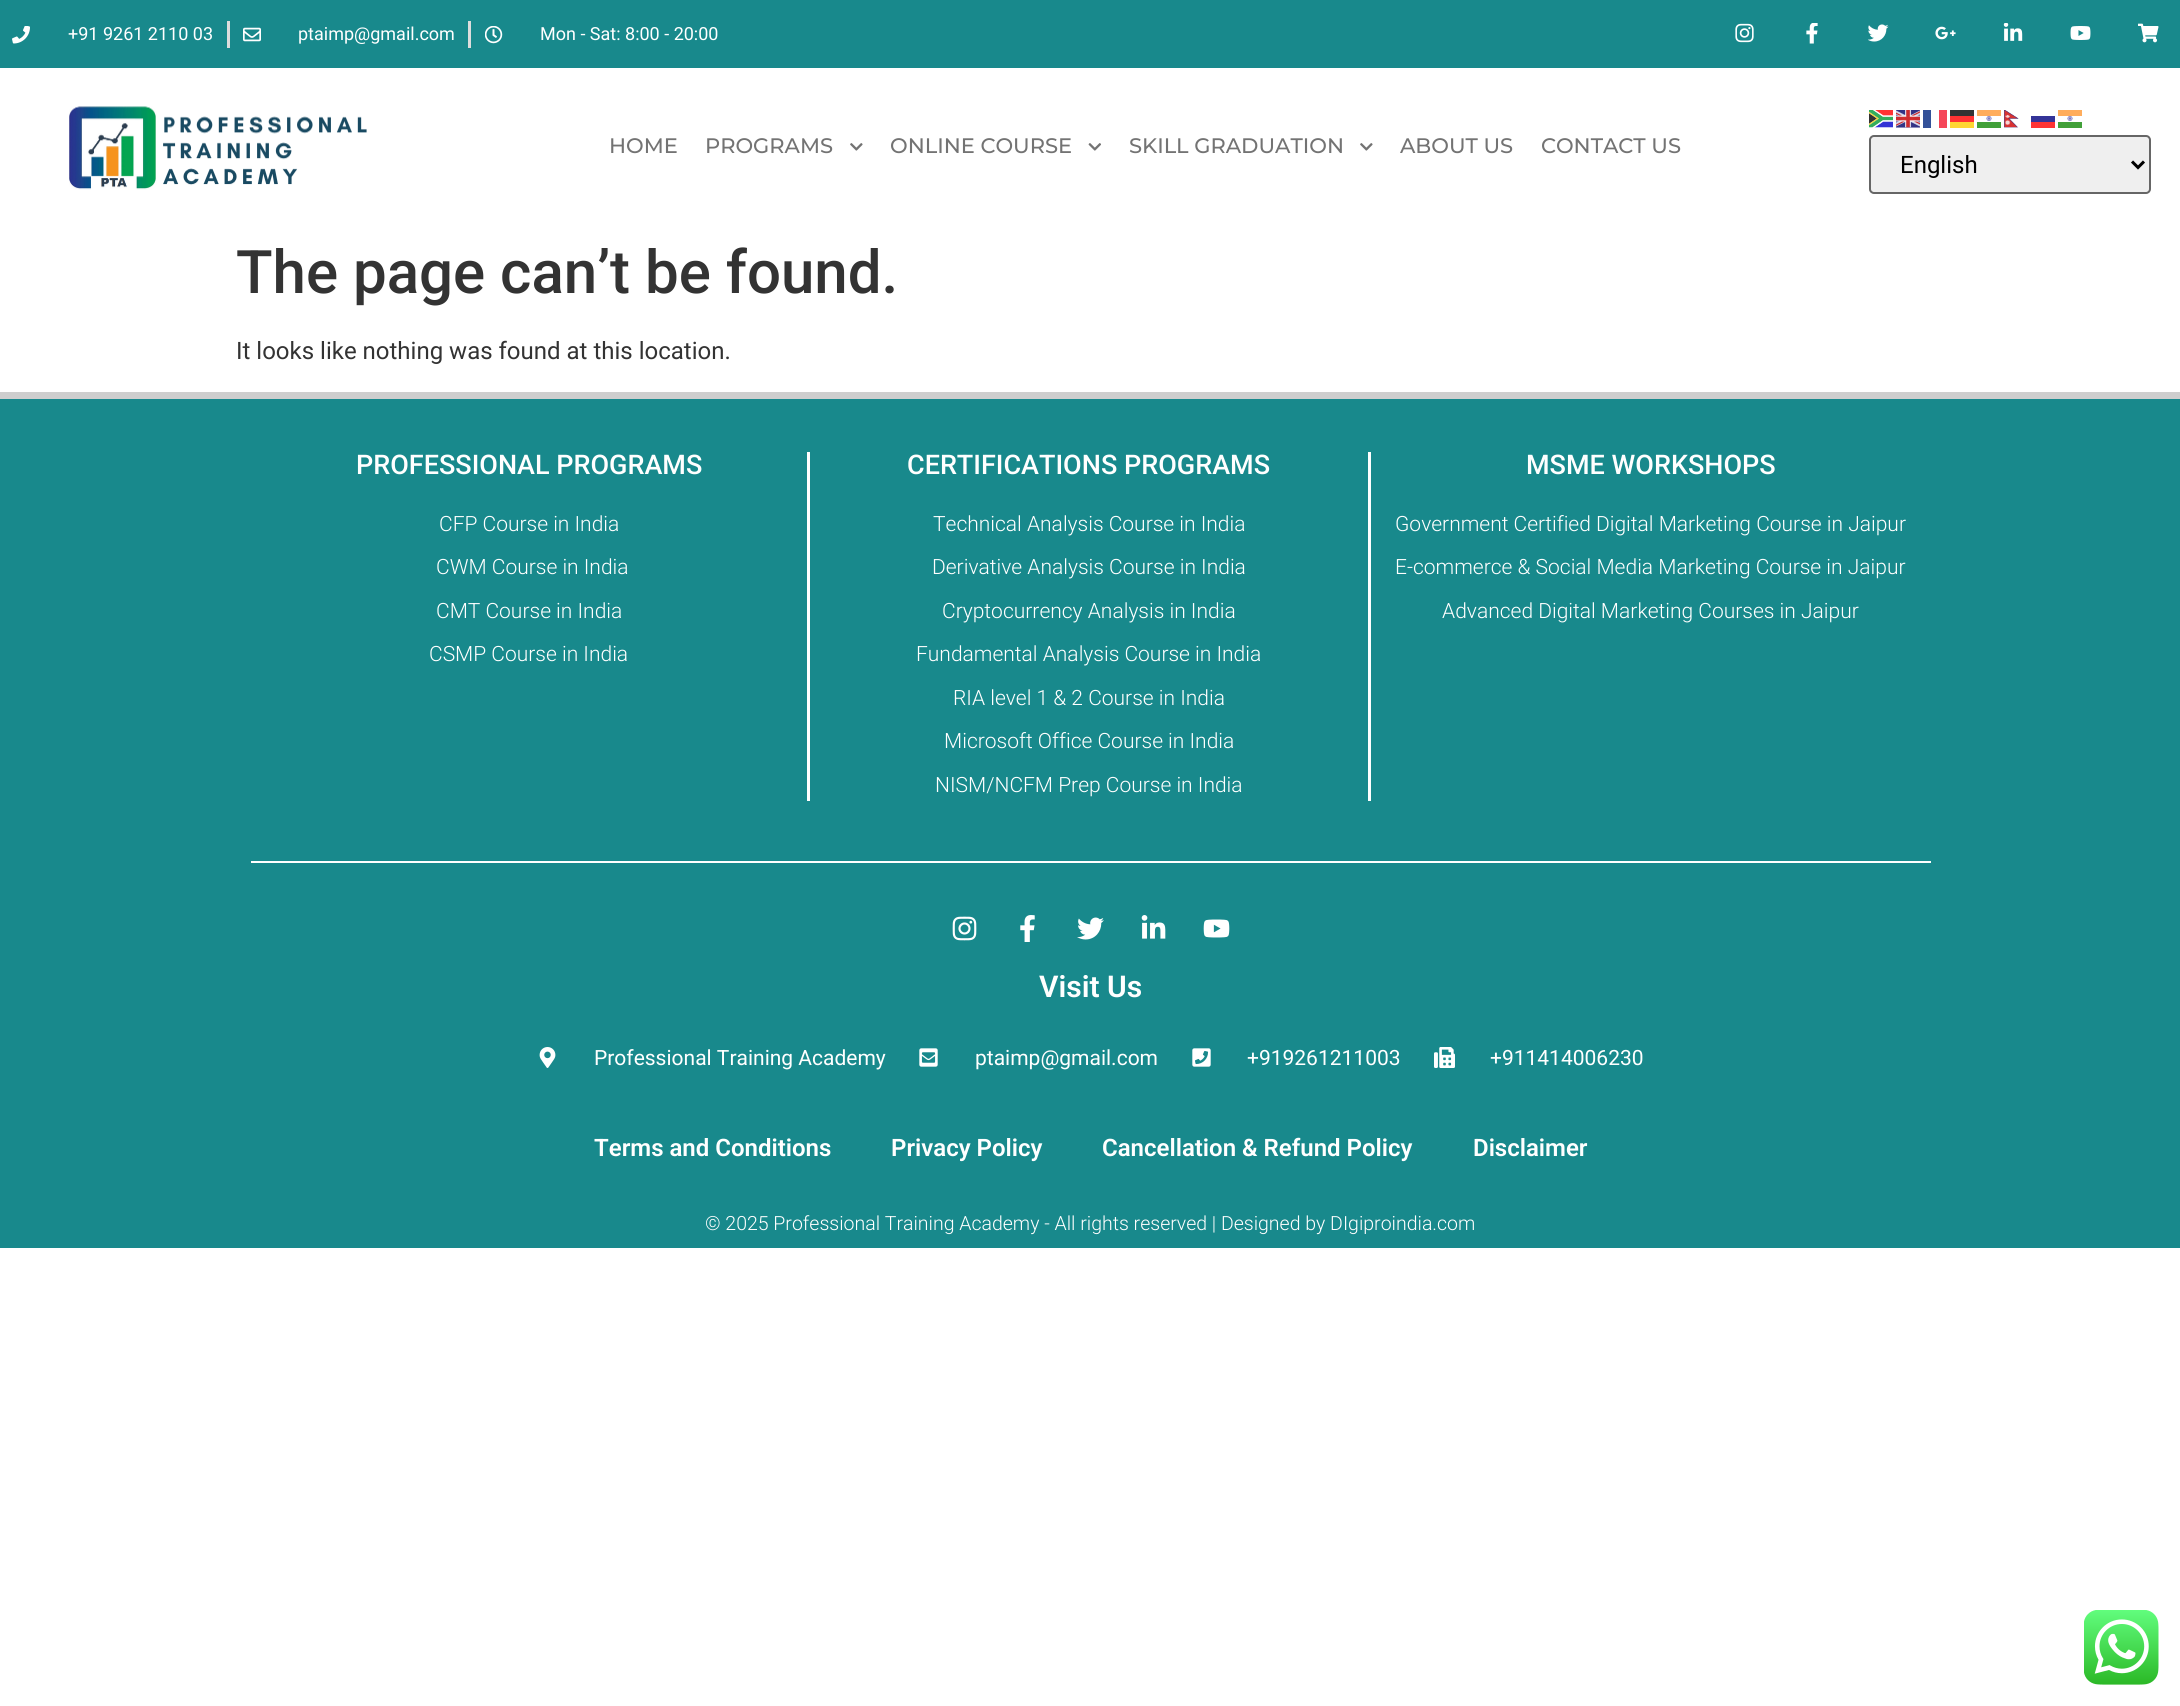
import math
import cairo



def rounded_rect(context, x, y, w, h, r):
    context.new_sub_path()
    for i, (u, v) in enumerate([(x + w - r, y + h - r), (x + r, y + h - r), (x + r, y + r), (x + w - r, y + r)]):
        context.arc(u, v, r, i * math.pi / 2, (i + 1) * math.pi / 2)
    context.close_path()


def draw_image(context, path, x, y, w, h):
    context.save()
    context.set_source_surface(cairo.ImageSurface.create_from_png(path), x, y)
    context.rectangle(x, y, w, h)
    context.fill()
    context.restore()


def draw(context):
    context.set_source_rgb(1, 1, 1)
    context.paint()
    context.set_source_rgb(24 / 255, 137 / 255, 140 / 255)
    context.rectangle(0, 0, 2180, 68)
    context.fill()
    draw_image(context, "images/1.png", 12, 26, 18, 18)
    context.set_source_rgb(221 / 255, 221 / 255, 221 / 255)
    context.rectangle(227, 21, 3, 27)
    context.fill()
    draw_image(context, "images/2.png", 243, 27, 18, 15)
    context.rectangle(468, 21, 3, 27)
    context.fill()
    draw_image(context, "images/3.png", 485, 26, 18, 18)
    draw_image(context, "images/4.png", 1735, 23, 19, 20)
    draw_image(context, "images/5.png", 1806, 23, 12, 21)
    draw_image(context, "images/6.png", 1868, 24, 21, 18)
    draw_image(context, "images/7.png", 1935, 26, 21, 14)
    draw_image(context, "images/8.png", 2003, 23, 20, 18)
    draw_image(context, "images/9.png", 2070, 26, 21, 14)
    draw_image(context, "images/10.png", 2138, 23, 21, 20)
    draw_image(context, "images/11.png", 69, 106, 298, 84)
    draw_image(context, "images/12.png", 850, 143, 13, 8)
    draw_image(context, "images/13.png", 1088, 143, 13, 8)
    draw_image(context, "images/12.png", 1360, 143, 13, 8)
    draw_image(context, "images/14.png", 1869, 110, 24, 18)
    draw_image(context, "images/15.png", 1896, 110, 24, 18)
    context.set_source_rgb(51 / 255, 81 / 255, 153 / 255)
    context.rectangle(1923, 110, 8, 18)
    context.fill()
    context.set_source_rgb(245 / 255, 70 / 255, 89 / 255)
    context.rectangle(1939, 110, 8, 18)
    context.fill()
    context.set_source_rgb(51 / 255, 51 / 255, 51 / 255)
    context.rectangle(1950, 110, 24, 6)
    context.fill()
    draw_image(context, "images/16.png", 1977, 110, 24, 18)
    draw_image(context, "images/17.png", 2004, 110, 15, 18)
    draw_image(context, "images/16.png", 2058, 110, 24, 18)
    context.set_source_rgb(1, 51 / 255, 51 / 255)
    context.rectangle(1950, 116, 24, 6)
    context.fill()
    context.set_source_rgb(52 / 255, 52 / 255, 152 / 255)
    context.rectangle(2031, 116, 24, 6)
    context.fill()
    context.set_source_rgb(1, 214 / 255, 51 / 255)
    context.rectangle(1950, 122, 24, 6)
    context.fill()
    context.set_source_rgb(254 / 255, 52 / 255, 52 / 255)
    context.rectangle(2031, 122, 24, 6)
    context.fill()
    context.set_source_rgb(239 / 255, 239 / 255, 239 / 255)
    rounded_rect(context, 1870, 136, 280, 57, 4)
    context.fill_preserve()
    context.set_source_rgb(102 / 255, 102 / 255, 102 / 255)
    context.stroke()
    context.new_path()
    context.move_to(2132, 161.5)
    context.line_to(2138, 167.5)
    context.line_to(2144, 161.5)
    context.set_source_rgb(0, 0, 0)
    context.set_line_width(3)
    context.stroke()
    context.set_source_rgb(24 / 255, 137 / 255, 140 / 255)
    context.rectangle(0, 399, 2180, 849)
    context.fill()
    context.set_source_rgb(206 / 255, 206 / 255, 206 / 255)
    context.rectangle(0, 392, 2180, 7)
    context.fill()
    context.set_source_rgb(1, 1, 1)
    context.rectangle(807, 452, 3, 349)
    context.fill()
    context.rectangle(1368, 452, 3, 349)
    context.fill()
    context.rectangle(251, 861, 1680, 2)
    context.fill()
    draw_image(context, "images/18.png", 952, 916, 25, 25)
    draw_image(context, "images/19.png", 1020, 915, 15, 27)
    draw_image(context, "images/20.png", 1077, 917, 27, 23)
    draw_image(context, "images/21.png", 1141, 915, 25, 24)
    draw_image(context, "images/22.png", 1203, 919, 27, 19)
    draw_image(context, "images/23.png", 539, 1047, 17, 21)
    draw_image(context, "images/24.png", 919, 1048, 19, 19)
    draw_image(context, "images/25.png", 1192, 1048, 19, 19)
    draw_image(context, "images/26.png", 1434, 1047, 21, 21)
    draw_image(context, "images/27.png", 2084, 1610, 75, 75)
    context.select_font_face("Roboto")
    context.set_font_size(18)
    context.move_to(68, 40)
    context.show_text("+91 9261 2110 03")
    context.move_to(298, 40)
    context.show_text("ptaimp@gmail.com")
    context.move_to(540, 40)
    context.show_text("Mon - Sat: 8:00 - 20:00")
    context.select_font_face("Montserrat Medium")
    context.set_font_size(21)
    context.set_source_rgb(115 / 255, 115 / 255, 115 / 255)
    context.move_to(609, 153)
    context.show_text("HOME")
    context.move_to(705, 153)
    context.show_text("PROGRAMS")
    context.move_to(890, 153)
    context.show_text("ONLINE COURSE")
    context.move_to(1129, 153)
    context.show_text("SKILL GRADUATION")
    context.move_to(1400, 153)
    context.show_text("ABOUT US")
    context.move_to(1541, 153)
    context.show_text("CONTACT US")
    context.select_font_face("Roboto")
    context.set_font_size(24)
    context.set_source_rgb(0, 0, 0)
    context.move_to(1900, 173)
    context.show_text("English")
    context.select_font_face("Roboto Medium")
    context.set_font_size(60)
    context.set_source_rgb(51 / 255, 51 / 255, 51 / 255)
    context.move_to(236, 293)
    context.show_text("The page can’t be found.")
    context.select_font_face("Roboto")
    context.set_font_size(24)
    context.move_to(236, 359)
    context.show_text("It looks like nothing was found at this location.")
    context.select_font_face("Roboto Medium")
    context.set_font_size(27)
    context.set_source_rgb(1, 1, 1)
    context.move_to(356, 474)
    context.show_text("PROFESSIONAL PROGRAMS")
    context.select_font_face("Roboto Light")
    context.set_font_size(21)
    context.move_to(439, 531)
    context.show_text("CFP Course in India")
    context.move_to(436, 574)
    context.show_text("CWM Course in India")
    context.move_to(436, 618)
    context.show_text("CMT Course in India")
    context.move_to(429, 661)
    context.show_text("CSMP Course in India")
    context.select_font_face("Roboto Medium")
    context.set_font_size(27)
    context.move_to(907, 474)
    context.show_text("CERTIFICATIONS PROGRAMS")
    context.select_font_face("Roboto Light")
    context.set_font_size(21)
    context.move_to(933, 531)
    context.show_text("Technical Analysis Course in India")
    context.move_to(932, 574)
    context.show_text("Derivative Analysis Course in India")
    context.move_to(942, 618)
    context.show_text("Cryptocurrency Analysis in India")
    context.move_to(916, 661)
    context.show_text("Fundamental Analysis Course in India")
    context.move_to(953, 705)
    context.show_text("RIA level 1 & 2 Course in India")
    context.move_to(944, 748)
    context.show_text("Microsoft Office Course in India")
    context.move_to(935, 792)
    context.show_text("NISM/NCFM Prep Course in India")
    context.select_font_face("Roboto Medium")
    context.set_font_size(27)
    context.move_to(1526, 474)
    context.show_text("MSME WORKSHOPS")
    context.select_font_face("Roboto Light")
    context.set_font_size(21)
    context.move_to(1395, 531)
    context.show_text("Government Certified Digital Marketing Course in Jaipur")
    context.move_to(1395, 574)
    context.show_text("E-commerce & Social Media Marketing Course in Jaipur")
    context.move_to(1442, 618)
    context.show_text("Advanced Digital Marketing Courses in Jaipur")
    context.select_font_face("Roboto SemiBold")
    context.set_font_size(30)
    context.move_to(1039, 997)
    context.show_text("Visit Us")
    context.select_font_face("Roboto")
    context.set_font_size(21)
    context.move_to(594, 1065)
    context.show_text("Professional Training Academy")
    context.move_to(975, 1065)
    context.show_text("ptaimp@gmail.com")
    context.move_to(1247, 1065)
    context.show_text("+919261211003")
    context.move_to(1490, 1065)
    context.show_text("+911414006230")
    context.select_font_face("Roboto SemiBold")
    context.set_font_size(24)
    context.move_to(594, 1156)
    context.show_text("Terms and Conditions")
    context.move_to(891, 1156)
    context.show_text("Privacy Policy")
    context.move_to(1102, 1156)
    context.show_text("Cancellation & Refund Policy")
    context.move_to(1473, 1156)
    context.show_text("Disclaimer")
    context.select_font_face("Roboto Light")
    context.set_font_size(19.5)
    context.move_to(705, 1230)
    context.show_text("© 2025 Professional Training Academy - All rights reserved | Designed by DIgiproindia.com")


surface = cairo.ImageSurface(cairo.Format.RGB24, 2180, 1706)
context = cairo.Context(surface)
options = cairo.FontOptions()
options.set_hint_metrics(cairo.HintMetrics.OFF)
options.set_hint_style(cairo.HintStyle.NONE)
context.set_font_options(options)
context.set_miter_limit(4)
draw(context)
surface.write_to_png("out.png")
